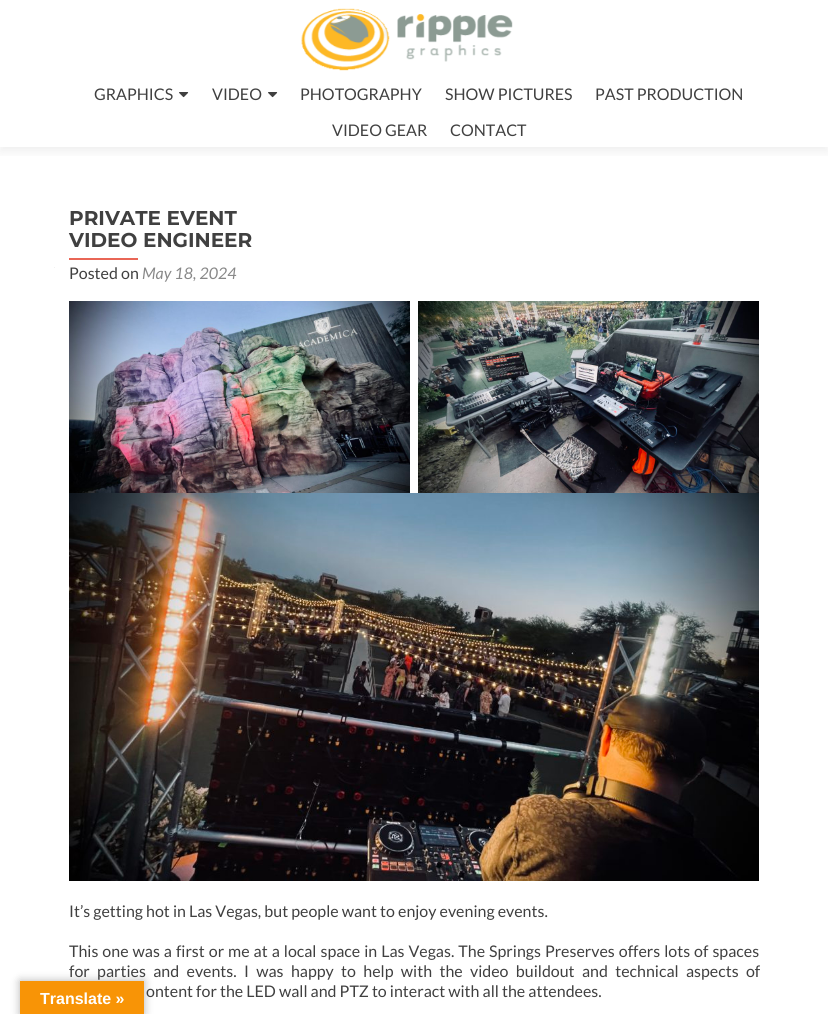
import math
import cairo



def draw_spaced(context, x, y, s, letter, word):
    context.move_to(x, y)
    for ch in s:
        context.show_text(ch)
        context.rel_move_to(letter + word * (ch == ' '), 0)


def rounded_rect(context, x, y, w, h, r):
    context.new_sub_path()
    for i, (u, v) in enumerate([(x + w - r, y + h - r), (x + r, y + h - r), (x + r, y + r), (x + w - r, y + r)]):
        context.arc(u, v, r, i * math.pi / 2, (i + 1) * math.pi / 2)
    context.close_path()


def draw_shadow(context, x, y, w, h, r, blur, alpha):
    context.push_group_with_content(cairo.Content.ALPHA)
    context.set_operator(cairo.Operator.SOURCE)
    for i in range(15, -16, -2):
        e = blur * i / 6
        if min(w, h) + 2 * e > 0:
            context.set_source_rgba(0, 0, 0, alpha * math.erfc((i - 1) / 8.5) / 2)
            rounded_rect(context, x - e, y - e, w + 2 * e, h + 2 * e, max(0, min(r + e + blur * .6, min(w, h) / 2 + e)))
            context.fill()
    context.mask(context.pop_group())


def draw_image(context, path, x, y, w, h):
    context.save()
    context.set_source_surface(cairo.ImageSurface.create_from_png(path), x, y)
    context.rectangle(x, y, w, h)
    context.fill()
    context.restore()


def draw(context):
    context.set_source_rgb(1, 1, 1)
    context.paint()
    context.save()
    context.rectangle(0, 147, 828, 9)
    context.clip()
    context.set_source_rgb(50 / 255, 50 / 255, 50 / 255)
    draw_shadow(context, 0, 5, 828, 147, 0, 5.5, 0.08)
    context.restore()
    draw_image(context, "images/1.png", 301, 8, 212, 63)
    draw_image(context, "images/2.png", 179, 92, 10, 6)
    draw_image(context, "images/2.png", 268, 92, 10, 6)
    context.set_source_rgb(242 / 255, 242 / 255, 242 / 255)
    context.rectangle(54, 267, 1, 1)
    context.fill()
    context.set_source_rgb(233 / 255, 102 / 255, 86 / 255)
    context.rectangle(69, 258, 69, 2)
    context.fill()
    draw_image(context, "images/3.png", 69, 301, 341, 192)
    draw_image(context, "images/4.png", 418, 301, 341, 192)
    draw_image(context, "images/5.png", 69, 493, 690, 388)
    context.set_source_rgb(0, 0, 0)
    draw_shadow(context, 20, 981, 124, 33, 0, 4.5, 0.3)
    context.set_source_rgb(248 / 255, 148 / 255, 6 / 255)
    context.rectangle(20, 981, 124, 33)
    context.fill()
    context.select_font_face("Lato")
    context.set_font_size(16)
    context.set_source_rgb(64 / 255, 64 / 255, 64 / 255)
    context.move_to(94, 100)
    context.show_text("GRAPHICS")
    context.move_to(212, 100)
    context.show_text("VIDEO")
    context.move_to(300, 100)
    context.show_text("PHOTOGRAPHY")
    context.move_to(445, 100)
    context.show_text("SHOW PICTURES")
    context.move_to(595, 100)
    context.show_text("PAST PRODUCTION")
    context.move_to(332, 136)
    context.show_text("VIDEO GEAR")
    context.move_to(450, 136)
    context.show_text("CONTACT")
    context.select_font_face("Montserrat", cairo.FontSlant.NORMAL, cairo.FontWeight.BOLD)
    context.set_font_size(20)
    context.move_to(69, 225)
    context.show_text("PRIVATE EVENT")
    context.move_to(69, 247)
    context.show_text("VIDEO ENGINEER")
    context.select_font_face("Lato")
    context.set_font_size(16)
    context.move_to(69, 279)
    context.show_text("Posted on")
    context.select_font_face("Lato", cairo.FontSlant.ITALIC)
    context.set_source_rgb(136 / 255, 136 / 255, 136 / 255)
    context.move_to(142, 279)
    context.show_text("May 18, 2024")
    context.select_font_face("Lato")
    context.set_source_rgb(64 / 255, 64 / 255, 64 / 255)
    context.move_to(69, 917)
    context.show_text("It’s getting hot in Las Vegas, but people want to enjoy evening events.")
    draw_spaced(context, 69, 957, "This one was a first or me at a local space in Las Vegas. The Springs Preserves offers lots of spaces", 0, 0.9)
    draw_spaced(context, 69, 977, "for parties and events. I was happy to help with the video buildout and technical aspects of", 0, 4.25)
    context.move_to(146, 997)
    context.show_text("ontent for the LED wall and PTZ to interact with all the attendees.")
    context.select_font_face("Liberation Sans", cairo.FontSlant.NORMAL, cairo.FontWeight.BOLD)
    context.set_source_rgb(1, 1, 1)
    context.move_to(40, 1004)
    context.show_text("Translate »")


surface = cairo.ImageSurface(cairo.Format.RGB24, 828, 1014)
context = cairo.Context(surface)
options = cairo.FontOptions()
options.set_hint_metrics(cairo.HintMetrics.OFF)
options.set_hint_style(cairo.HintStyle.NONE)
context.set_font_options(options)
context.set_miter_limit(4)
draw(context)
surface.write_to_png("out.png")
